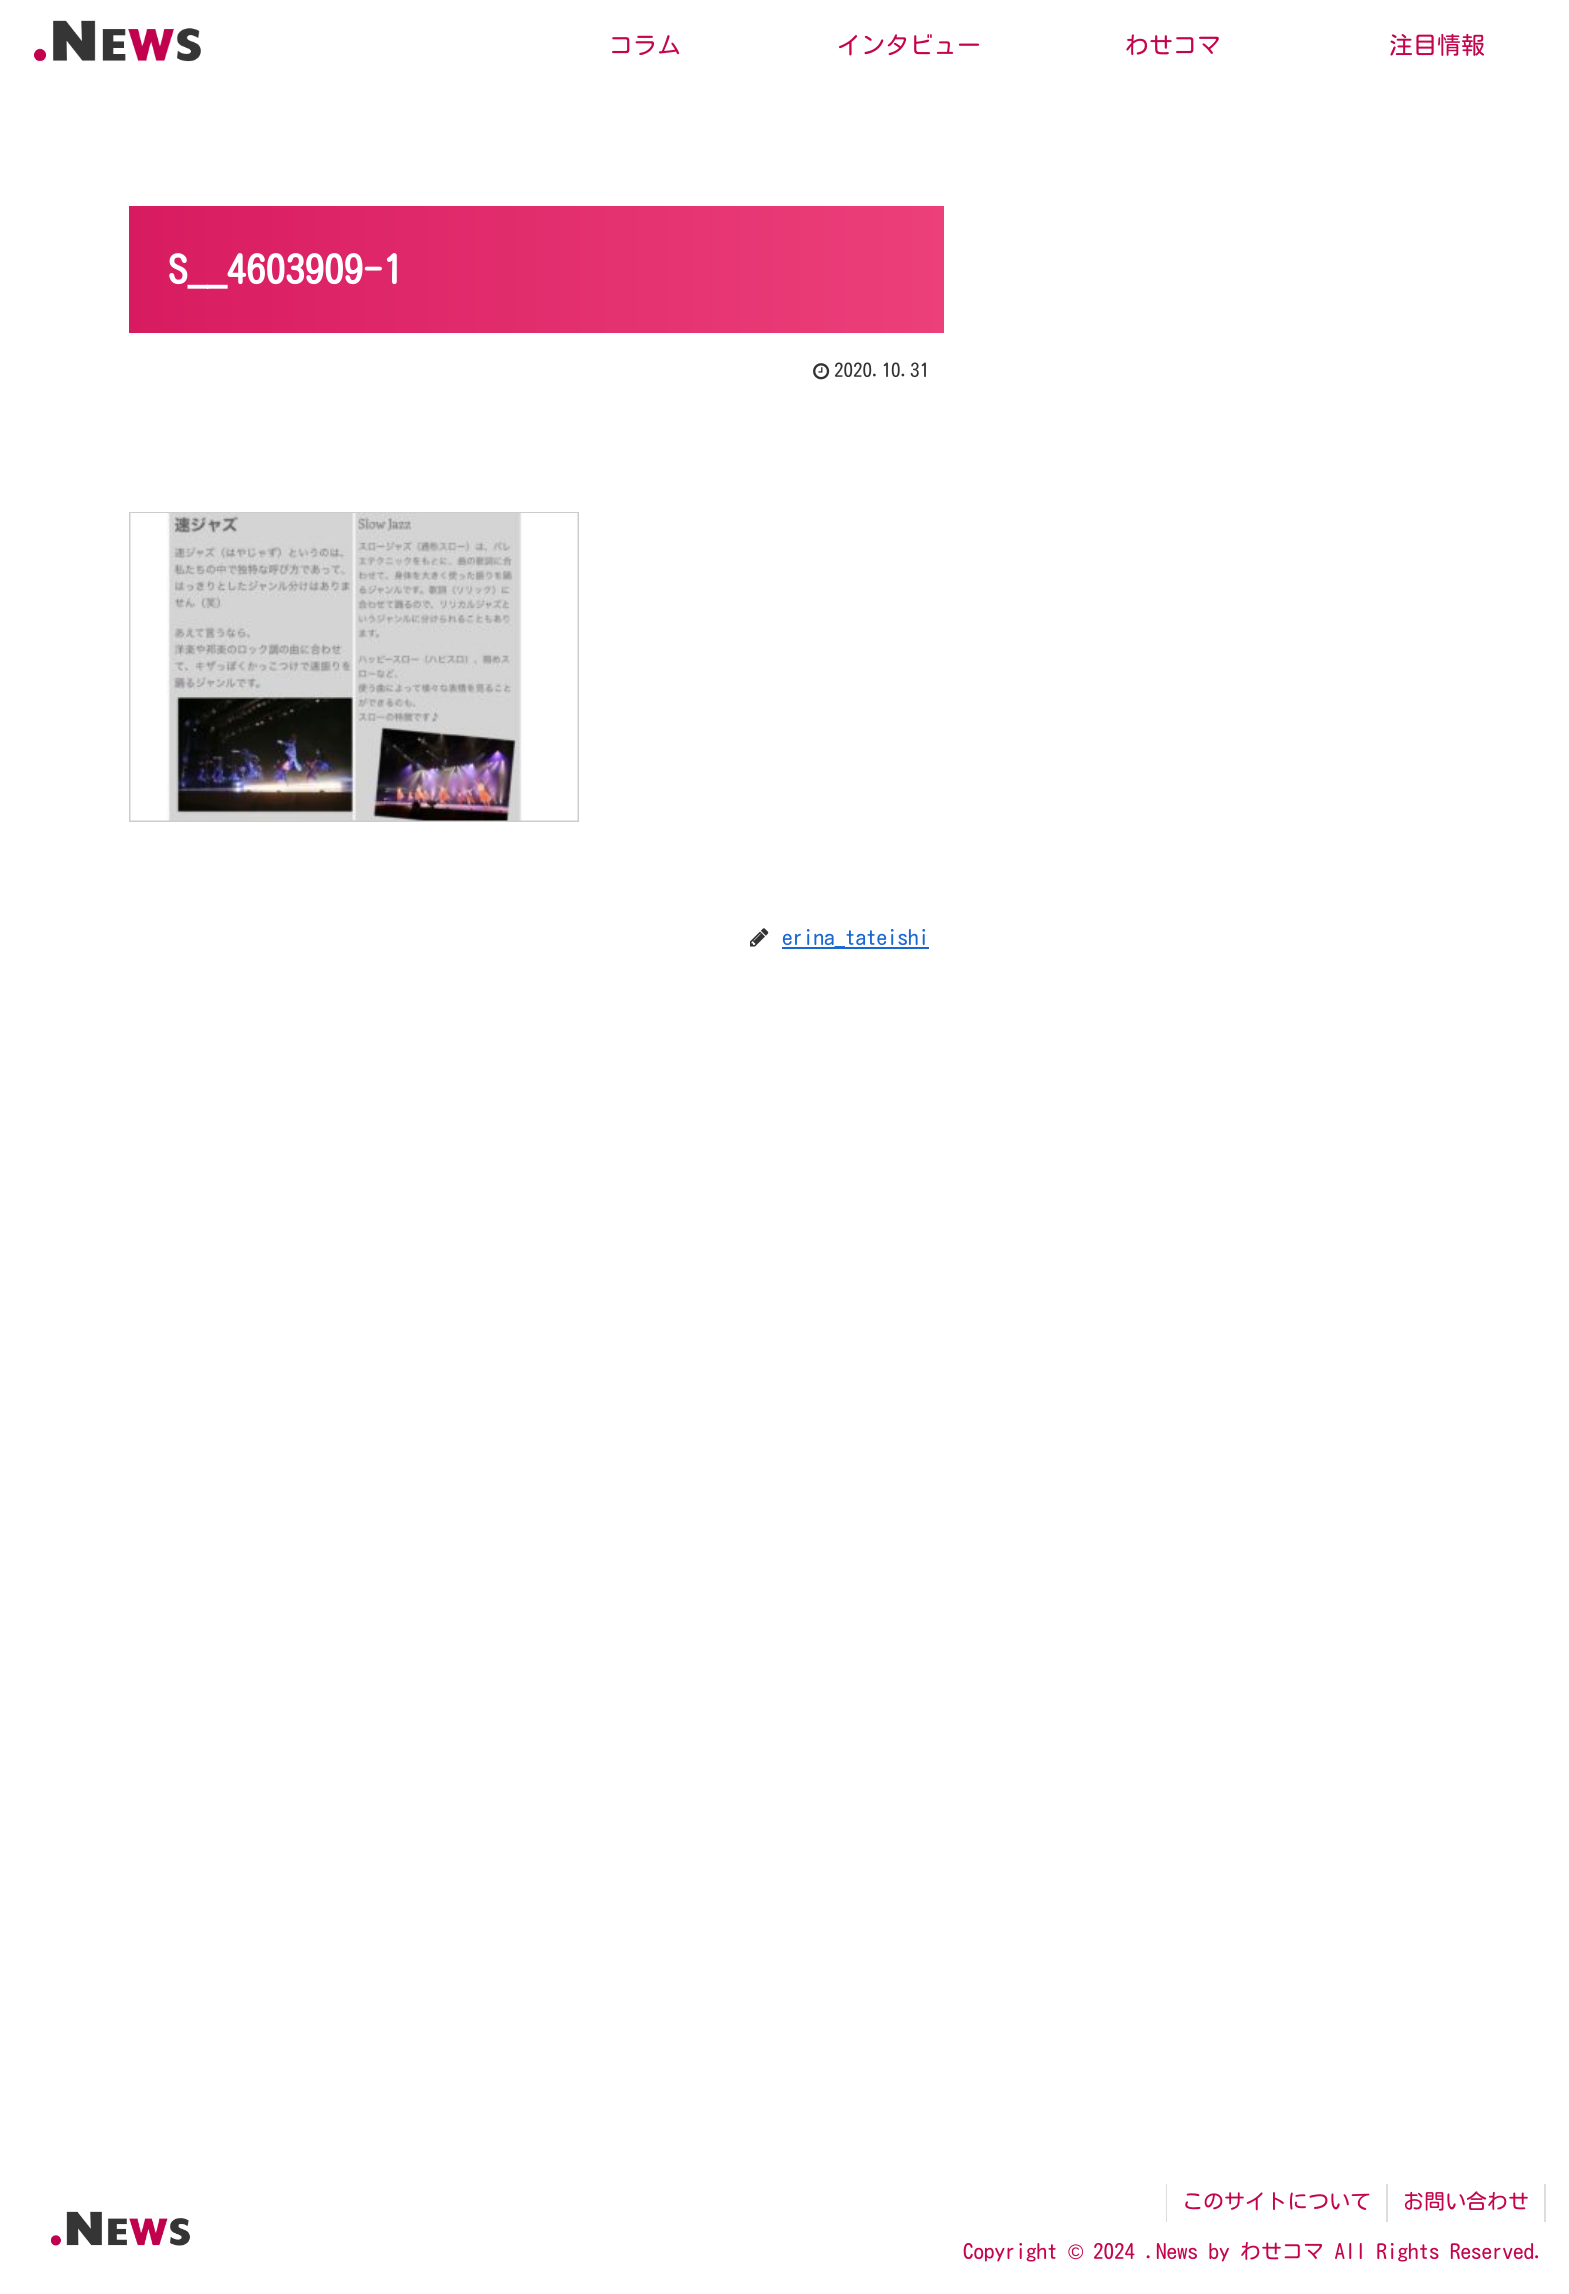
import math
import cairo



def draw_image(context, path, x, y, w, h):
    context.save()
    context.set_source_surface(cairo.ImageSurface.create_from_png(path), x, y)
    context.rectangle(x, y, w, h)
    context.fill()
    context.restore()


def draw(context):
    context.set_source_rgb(1, 1, 1)
    context.paint()
    draw_image(context, "images/1.png", 34, 20, 167, 42)
    gradient = cairo.LinearGradient(129, 269, 944, 269)
    gradient.add_color_stop_rgba(0, 216 / 255, 27 / 255, 96 / 255, 1)
    gradient.add_color_stop_rgba(1, 236 / 255, 64 / 255, 122 / 255, 1)
    context.set_source(gradient)
    context.rectangle(129, 206, 815, 127)
    context.fill()
    draw_image(context, "images/2.png", 813, 363, 17, 17)
    context.rectangle(130, 513, 448, 308)
    context.set_source_rgb(204 / 255, 204 / 255, 204 / 255)
    context.stroke()
    draw_image(context, "images/3.png", 130, 513, 448, 308)
    draw_image(context, "images/4.png", 750, 928, 19, 19)
    context.set_source_rgb(25 / 255, 103 / 255, 210 / 255)
    context.rectangle(782, 947, 147, 2)
    context.fill()
    draw_image(context, "images/5.png", 50, 2211, 140, 35)
    context.set_source_rgb(221 / 255, 221 / 255, 221 / 255)
    context.rectangle(1166, 2184, 1, 38)
    context.fill()
    context.rectangle(1544, 2184, 2, 38)
    context.fill()
    context.rectangle(1386, 2184, 2, 38)
    context.fill()
    context.select_font_face("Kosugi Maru")
    context.set_font_size(24)
    context.set_source_rgb(196 / 255, 4 / 255, 76 / 255)
    context.move_to(609, 54)
    context.show_text("コラム")
    context.move_to(837, 54)
    context.show_text("インタビュー")
    context.move_to(1125, 54)
    context.show_text("わせコマ")
    context.move_to(1389, 54)
    context.show_text("注目情報")
    context.select_font_face("Kosugi Maru", cairo.FontSlant.NORMAL, cairo.FontWeight.BOLD)
    context.set_font_size(39)
    context.set_source_rgb(1, 1, 1)
    context.move_to(168, 284)
    context.show_text("S__4603909-1")
    context.select_font_face("Kosugi Maru")
    context.set_font_size(19)
    context.set_source_rgb(51 / 255, 51 / 255, 51 / 255)
    context.move_to(834, 377)
    context.show_text("2020.10.31")
    context.set_font_size(21)
    context.set_source_rgb(25 / 255, 103 / 255, 210 / 255)
    context.move_to(782, 945)
    context.show_text("erina_tateishi")
    context.set_source_rgb(196 / 255, 4 / 255, 76 / 255)
    context.move_to(1182, 2209)
    context.show_text("このサイトについて")
    context.move_to(1403, 2209)
    context.show_text("お問い合わせ")
    context.move_to(963, 2259)
    context.show_text("Copyright")
    context.select_font_face("Liberation Sans")
    context.move_to(1068, 2259)
    context.show_text("©")
    context.select_font_face("Kosugi Maru")
    context.move_to(1093, 2259)
    context.show_text("2024 .News by わせコマ All Rights Reserved.")


surface = cairo.ImageSurface(cairo.Format.RGB24, 1569, 2294)
context = cairo.Context(surface)
options = cairo.FontOptions()
options.set_hint_metrics(cairo.HintMetrics.OFF)
options.set_hint_style(cairo.HintStyle.NONE)
context.set_font_options(options)
context.set_miter_limit(4)
draw(context)
surface.write_to_png("out.png")
